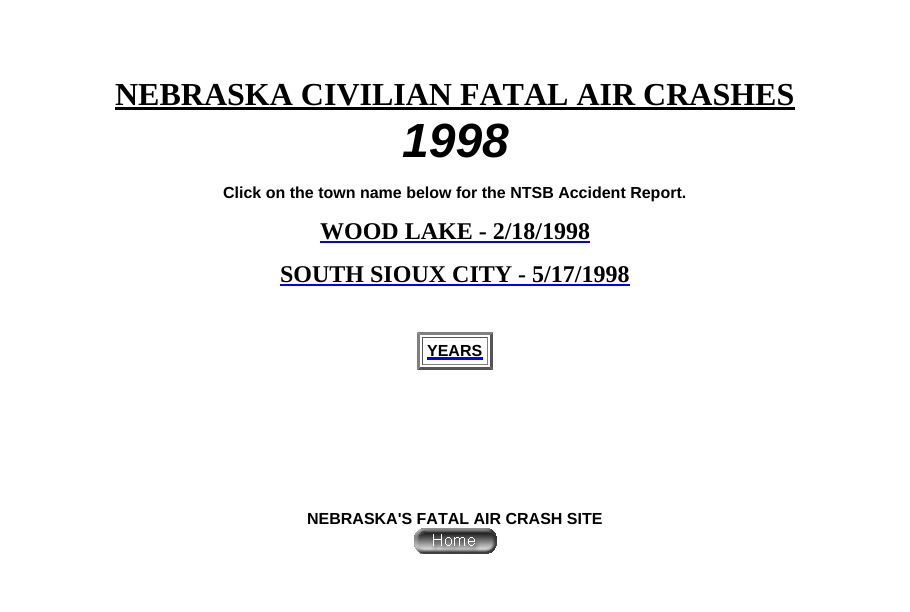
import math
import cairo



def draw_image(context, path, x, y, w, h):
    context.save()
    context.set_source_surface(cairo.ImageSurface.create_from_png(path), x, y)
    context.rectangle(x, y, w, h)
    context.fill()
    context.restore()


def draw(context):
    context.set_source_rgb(1, 1, 1)
    context.paint()
    context.set_source_rgb(0, 0, 0)
    context.rectangle(115, 107, 680, 3)
    context.fill()
    context.set_source_rgb(0, 0, 238 / 255)
    context.rectangle(320, 241, 270, 2)
    context.fill()
    context.rectangle(280, 284, 350, 2)
    context.fill()
    context.set_source_rgb(128 / 255, 128 / 255, 128 / 255)
    context.new_path()
    context.move_to(417, 332)
    context.line_to(493, 332)
    context.line_to(490, 335)
    context.line_to(420, 335)
    context.close_path()
    context.fill()
    context.set_source_rgb(85 / 255, 85 / 255, 85 / 255)
    context.new_path()
    context.move_to(493, 332)
    context.line_to(493, 370)
    context.line_to(490, 367)
    context.line_to(490, 335)
    context.close_path()
    context.fill()
    context.new_path()
    context.move_to(493, 370)
    context.line_to(417, 370)
    context.line_to(420, 367)
    context.line_to(490, 367)
    context.close_path()
    context.fill()
    context.set_source_rgb(128 / 255, 128 / 255, 128 / 255)
    context.new_path()
    context.move_to(417, 370)
    context.line_to(417, 332)
    context.line_to(420, 335)
    context.line_to(420, 367)
    context.close_path()
    context.fill()
    context.set_source_rgb(85 / 255, 85 / 255, 85 / 255)
    context.rectangle(422, 337, 66, 1)
    context.fill()
    context.set_source_rgb(128 / 255, 128 / 255, 128 / 255)
    context.rectangle(487, 337, 1, 28)
    context.fill()
    context.rectangle(422, 364, 66, 1)
    context.fill()
    context.set_source_rgb(85 / 255, 85 / 255, 85 / 255)
    context.rectangle(422, 337, 1, 28)
    context.fill()
    context.set_source_rgb(0, 0, 238 / 255)
    context.rectangle(427, 357, 56, 3)
    context.fill()
    draw_image(context, "images/1.png", 414, 528, 83, 26)
    context.select_font_face("Liberation Serif", cairo.FontSlant.NORMAL, cairo.FontWeight.BOLD)
    context.set_font_size(32)
    context.set_source_rgb(0, 0, 0)
    context.move_to(115, 105)
    context.show_text("NEBRASKA CIVILIAN FATAL AIR CRASHES")
    context.select_font_face("Liberation Sans", cairo.FontSlant.ITALIC, cairo.FontWeight.BOLD)
    context.set_font_size(48)
    context.move_to(402, 157)
    context.show_text("1998")
    context.select_font_face("Liberation Sans", cairo.FontSlant.NORMAL, cairo.FontWeight.BOLD)
    context.set_font_size(16)
    context.move_to(223, 198)
    context.show_text("Click on the town name below for the NTSB Accident Report.")
    context.select_font_face("Liberation Serif", cairo.FontSlant.NORMAL, cairo.FontWeight.BOLD)
    context.set_font_size(24)
    context.move_to(320, 239)
    context.show_text("WOOD LAKE - 2/18/1998")
    context.move_to(280, 282)
    context.show_text("SOUTH SIOUX CITY - 5/17/1998")
    context.select_font_face("Liberation Sans", cairo.FontSlant.NORMAL, cairo.FontWeight.BOLD)
    context.set_font_size(16)
    context.move_to(427, 356)
    context.show_text("YEARS")
    context.move_to(307, 524)
    context.show_text("NEBRASKA'S FATAL AIR CRASH SITE")


surface = cairo.ImageSurface(cairo.Format.RGB24, 910, 612)
context = cairo.Context(surface)
options = cairo.FontOptions()
options.set_hint_metrics(cairo.HintMetrics.OFF)
options.set_hint_style(cairo.HintStyle.NONE)
context.set_font_options(options)
context.set_miter_limit(4)
draw(context)
surface.write_to_png("out.png")
